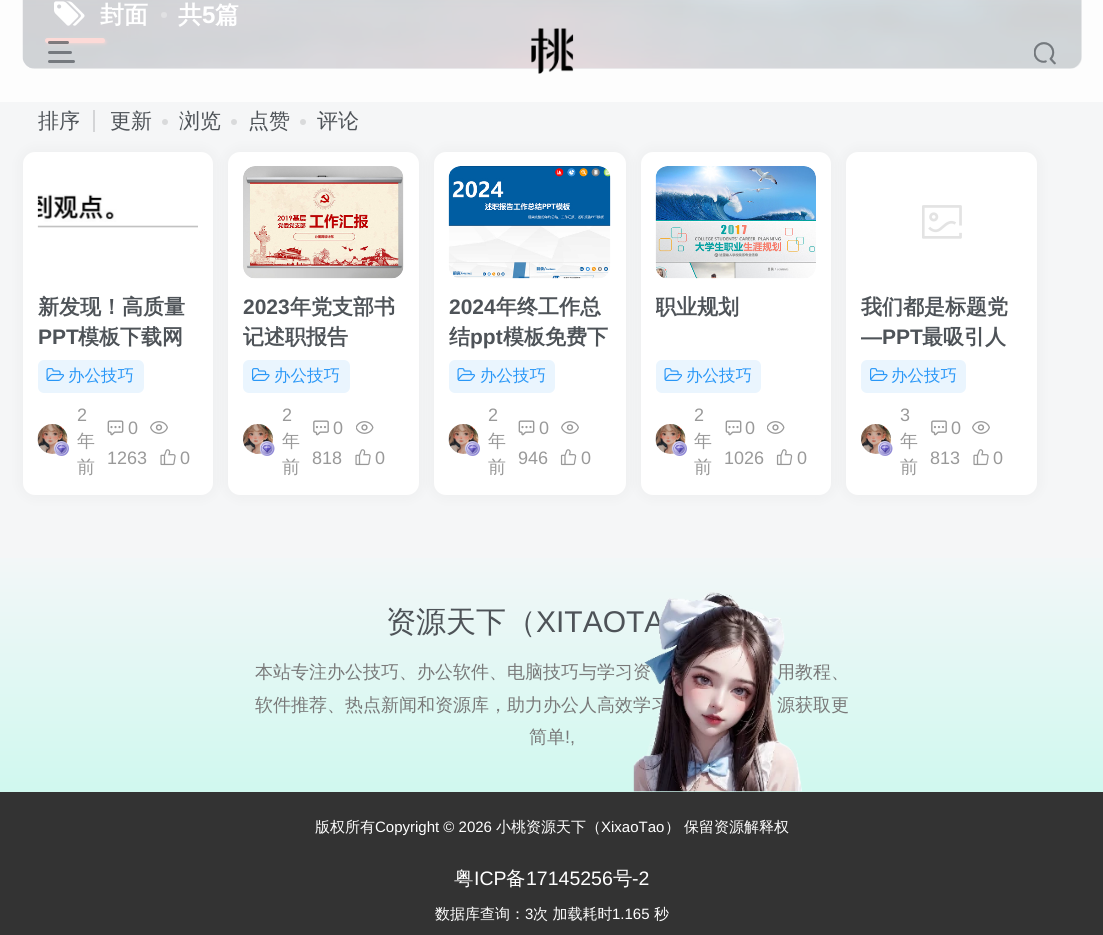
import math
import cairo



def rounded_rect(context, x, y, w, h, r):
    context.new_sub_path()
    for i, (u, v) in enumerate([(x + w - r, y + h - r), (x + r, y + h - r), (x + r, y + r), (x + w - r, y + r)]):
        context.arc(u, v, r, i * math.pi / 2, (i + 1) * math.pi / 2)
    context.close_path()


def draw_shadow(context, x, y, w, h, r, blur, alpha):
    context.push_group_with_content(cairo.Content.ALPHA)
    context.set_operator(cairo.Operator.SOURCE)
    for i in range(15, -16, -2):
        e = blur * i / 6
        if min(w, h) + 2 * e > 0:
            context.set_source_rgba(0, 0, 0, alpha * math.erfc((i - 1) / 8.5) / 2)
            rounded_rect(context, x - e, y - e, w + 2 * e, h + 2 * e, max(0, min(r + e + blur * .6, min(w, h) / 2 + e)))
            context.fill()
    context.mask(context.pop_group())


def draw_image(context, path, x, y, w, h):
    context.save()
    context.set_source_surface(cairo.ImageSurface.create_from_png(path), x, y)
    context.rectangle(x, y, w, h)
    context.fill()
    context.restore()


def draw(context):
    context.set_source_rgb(245 / 255, 246 / 255, 247 / 255)
    context.paint()
    context.set_source_rgb(253 / 255, 253 / 255, 253 / 255)
    context.rectangle(0, 0, 1103, 102)
    context.fill()
    draw_image(context, "images/1.png", 22, 0, 1060, 69)
    gradient = cairo.LinearGradient(552, 69, 552, -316)
    gradient.add_color_stop_rgba(0.16, 210 / 255, 212 / 255, 214 / 255, 0.4)
    gradient.add_color_stop_rgba(0.44, 210 / 255, 212 / 255, 214 / 255, 0)
    context.set_source(gradient)
    rounded_rect(context, 23, -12, 1059, 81, 12)
    context.fill()
    draw_image(context, "images/2.png", 54, 1, 31, 25)
    context.set_source_rgb(225 / 255, 225 / 255, 227 / 255)
    context.arc(164, 15, 3, 0, 2 * math.pi)
    context.fill()
    context.set_source_rgb(253 / 255, 218 / 255, 215 / 255)
    draw_shadow(context, 48, 41, 57, 2, 1, 2, 1)
    context.set_source_rgb(253 / 255, 218 / 255, 215 / 255)
    rounded_rect(context, 45, 38, 60, 5, 2.5)
    context.fill()
    context.set_source_rgb(116 / 255, 116 / 255, 116 / 255)
    draw_shadow(context, 23, 152, 190, 343, 12, 7.5, 0.08)
    context.set_source_rgb(212 / 255, 213 / 255, 215 / 255)
    context.rectangle(93, 110, 2, 22)
    context.fill()
    context.set_source_rgb(217 / 255, 218 / 255, 219 / 255)
    context.arc(165, 122, 3, 0, 2 * math.pi)
    context.fill()
    context.arc(234, 122, 3, 0, 2 * math.pi)
    context.fill()
    context.arc(303, 122, 3, 0, 2 * math.pi)
    context.fill()
    context.set_source_rgb(1, 1, 1)
    rounded_rect(context, 23, 152, 190, 343, 12)
    context.fill()
    draw_image(context, "images/3.png", 37, 194, 161, 34)
    context.set_source_rgb(234 / 255, 245 / 255, 254 / 255)
    rounded_rect(context, 38, 360, 106, 33, 6)
    context.fill()
    draw_image(context, "images/4.png", 46, 368, 19, 13)
    draw_image(context, "images/5.png", 37, 424, 31, 30)
    draw_image(context, "images/6.png", 54, 441, 15, 15)
    draw_image(context, "images/7.png", 107, 420, 17, 16)
    draw_image(context, "images/8.png", 150, 421, 18, 13)
    draw_image(context, "images/9.png", 160, 449, 16, 17)
    context.set_source_rgb(116 / 255, 116 / 255, 116 / 255)
    draw_shadow(context, 228, 152, 191, 343, 12, 7.5, 0.08)
    context.set_source_rgb(1, 1, 1)
    rounded_rect(context, 228, 152, 191, 343, 12)
    context.fill()
    draw_image(context, "images/10.png", 243, 166, 161, 113)
    context.set_source_rgb(234 / 255, 245 / 255, 254 / 255)
    rounded_rect(context, 243, 360, 107, 33, 6)
    context.fill()
    draw_image(context, "images/11.png", 252, 368, 18, 13)
    draw_image(context, "images/12.png", 243, 424, 30, 30)
    draw_image(context, "images/13.png", 260, 441, 15, 15)
    draw_image(context, "images/14.png", 313, 420, 16, 16)
    draw_image(context, "images/15.png", 356, 421, 18, 13)
    draw_image(context, "images/9.png", 355, 449, 16, 17)
    context.set_source_rgb(116 / 255, 116 / 255, 116 / 255)
    draw_shadow(context, 434, 152, 192, 343, 12, 7.5, 0.08)
    context.set_source_rgb(1, 1, 1)
    rounded_rect(context, 434, 152, 192, 343, 12)
    context.fill()
    draw_image(context, "images/16.png", 448, 166, 163, 113)
    context.set_source_rgb(234 / 255, 245 / 255, 254 / 255)
    rounded_rect(context, 449, 360, 106, 33, 6)
    context.fill()
    draw_image(context, "images/4.png", 457, 368, 19, 13)
    draw_image(context, "images/17.png", 448, 424, 31, 30)
    draw_image(context, "images/6.png", 465, 441, 15, 15)
    draw_image(context, "images/7.png", 518, 420, 17, 16)
    draw_image(context, "images/8.png", 561, 421, 18, 13)
    draw_image(context, "images/18.png", 560, 449, 17, 17)
    context.set_source_rgb(116 / 255, 116 / 255, 116 / 255)
    draw_shadow(context, 641, 152, 190, 343, 12, 7.5, 0.08)
    context.set_source_rgb(1, 1, 1)
    rounded_rect(context, 641, 152, 190, 343, 12)
    context.fill()
    draw_image(context, "images/19.png", 655, 166, 161, 113)
    context.set_source_rgb(234 / 255, 245 / 255, 254 / 255)
    rounded_rect(context, 656, 360, 105, 33, 6)
    context.fill()
    draw_image(context, "images/4.png", 664, 368, 19, 13)
    draw_image(context, "images/20.png", 655, 424, 31, 30)
    draw_image(context, "images/6.png", 672, 441, 15, 15)
    draw_image(context, "images/7.png", 725, 420, 17, 16)
    draw_image(context, "images/15.png", 767, 421, 18, 13)
    draw_image(context, "images/18.png", 776, 449, 17, 17)
    context.set_source_rgb(116 / 255, 116 / 255, 116 / 255)
    draw_shadow(context, 846, 152, 191, 343, 12, 7.5, 0.08)
    context.set_source_rgb(1, 1, 1)
    rounded_rect(context, 846, 152, 191, 343, 12)
    context.fill()
    draw_image(context, "images/21.png", 922, 205, 40, 34)
    context.set_source_rgb(234 / 255, 245 / 255, 254 / 255)
    rounded_rect(context, 861, 360, 105, 33, 6)
    context.fill()
    draw_image(context, "images/11.png", 870, 368, 18, 13)
    draw_image(context, "images/22.png", 861, 424, 30, 30)
    draw_image(context, "images/13.png", 878, 441, 15, 15)
    draw_image(context, "images/14.png", 931, 420, 16, 16)
    draw_image(context, "images/8.png", 972, 421, 18, 13)
    draw_image(context, "images/9.png", 973, 449, 16, 17)
    context.set_source_rgba(78 / 255, 83 / 255, 88 / 255, 0.7)
    rounded_rect(context, 48, 41, 21, 3, 1.5)
    context.fill()
    context.set_source_rgb(117 / 255, 121 / 255, 126 / 255)
    rounded_rect(context, 48, 51, 24, 3, 1.5)
    context.fill()
    rounded_rect(context, 48, 60, 27, 3, 1.5)
    context.fill()
    draw_image(context, "images/23.png", 531, 28, 43, 46)
    draw_image(context, "images/24.png", 1034, 42, 22, 23)
    gradient = cairo.LinearGradient(552, 792, 552, 548)
    gradient.add_color_stop_rgba(0, 208 / 255, 248 / 255, 239 / 255, 1)
    gradient.add_color_stop_rgba(1, 244 / 255, 247 / 255, 248 / 255, 1)
    context.set_source(gradient)
    context.rectangle(0, 558, 1103, 234)
    context.fill()
    context.set_source_rgb(51 / 255, 51 / 255, 51 / 255)
    context.rectangle(0, 792, 1103, 143)
    context.fill()
    context.select_font_face("WenQuanYi Zen Hei", cairo.FontSlant.NORMAL, cairo.FontWeight.BOLD)
    context.set_font_size(24)
    context.set_source_rgb(1, 1, 1)
    context.move_to(100, 23)
    context.show_text("封面")
    context.move_to(178, 23)
    context.show_text("共")
    context.select_font_face("Liberation Sans", cairo.FontSlant.NORMAL, cairo.FontWeight.BOLD)
    context.move_to(202, 23)
    context.show_text("5")
    context.select_font_face("WenQuanYi Zen Hei", cairo.FontSlant.NORMAL, cairo.FontWeight.BOLD)
    context.move_to(215, 23)
    context.show_text("篇")
    context.select_font_face("WenQuanYi Zen Hei Medium")
    context.set_font_size(21)
    context.set_source_rgb(78 / 255, 83 / 255, 88 / 255)
    context.move_to(38, 128)
    context.show_text("排序")
    context.move_to(110, 128)
    context.show_text("更新")
    context.move_to(179, 128)
    context.show_text("浏览")
    context.move_to(248, 128)
    context.show_text("点赞")
    context.move_to(317, 128)
    context.show_text("评论")
    context.select_font_face("WenQuanYi Zen Hei", cairo.FontSlant.NORMAL, cairo.FontWeight.BOLD)
    context.move_to(38, 314)
    context.show_text("新发现！高质量")
    context.select_font_face("Liberation Sans", cairo.FontSlant.NORMAL, cairo.FontWeight.BOLD)
    context.move_to(38, 344)
    context.show_text("PPT")
    context.select_font_face("WenQuanYi Zen Hei", cairo.FontSlant.NORMAL, cairo.FontWeight.BOLD)
    context.move_to(78, 344)
    context.show_text("模板下载网")
    context.select_font_face("WenQuanYi Zen Hei Medium")
    context.set_font_size(16.5)
    context.set_source_rgb(41 / 255, 151 / 255, 247 / 255)
    context.move_to(68, 381)
    context.show_text("办公技巧")
    context.select_font_face("Liberation Sans")
    context.set_font_size(18)
    context.set_source_rgb(153 / 255, 153 / 255, 153 / 255)
    context.move_to(77, 421)
    context.show_text("2")
    context.select_font_face("WenQuanYi Zen Hei Medium")
    context.move_to(77, 447)
    context.show_text("年")
    context.move_to(77, 473)
    context.show_text("前")
    context.select_font_face("Liberation Sans")
    context.move_to(128, 434)
    context.show_text("0")
    context.move_to(107, 464)
    context.show_text("1263")
    context.move_to(180, 464)
    context.show_text("0")
    context.select_font_face("Liberation Sans", cairo.FontSlant.NORMAL, cairo.FontWeight.BOLD)
    context.set_font_size(21)
    context.set_source_rgb(78 / 255, 83 / 255, 88 / 255)
    context.move_to(243, 314)
    context.show_text("2023")
    context.select_font_face("WenQuanYi Zen Hei", cairo.FontSlant.NORMAL, cairo.FontWeight.BOLD)
    context.move_to(290, 314)
    context.show_text("年党支部书")
    context.move_to(243, 344)
    context.show_text("记述职报告")
    context.select_font_face("WenQuanYi Zen Hei Medium")
    context.set_font_size(16.5)
    context.set_source_rgb(41 / 255, 151 / 255, 247 / 255)
    context.move_to(274, 381)
    context.show_text("办公技巧")
    context.select_font_face("Liberation Sans")
    context.set_font_size(18)
    context.set_source_rgb(153 / 255, 153 / 255, 153 / 255)
    context.move_to(282, 421)
    context.show_text("2")
    context.select_font_face("WenQuanYi Zen Hei Medium")
    context.move_to(282, 447)
    context.show_text("年")
    context.move_to(282, 473)
    context.show_text("前")
    context.select_font_face("Liberation Sans")
    context.move_to(333, 434)
    context.show_text("0")
    context.move_to(312, 464)
    context.show_text("818")
    context.move_to(375, 464)
    context.show_text("0")
    context.select_font_face("Liberation Sans", cairo.FontSlant.NORMAL, cairo.FontWeight.BOLD)
    context.set_font_size(21)
    context.set_source_rgb(78 / 255, 83 / 255, 88 / 255)
    context.move_to(449, 314)
    context.show_text("2024")
    context.select_font_face("WenQuanYi Zen Hei", cairo.FontSlant.NORMAL, cairo.FontWeight.BOLD)
    context.move_to(496, 314)
    context.show_text("年终工作总")
    context.move_to(449, 344)
    context.show_text("结")
    context.select_font_face("Liberation Sans", cairo.FontSlant.NORMAL, cairo.FontWeight.BOLD)
    context.move_to(470, 344)
    context.show_text("ppt")
    context.select_font_face("WenQuanYi Zen Hei", cairo.FontSlant.NORMAL, cairo.FontWeight.BOLD)
    context.move_to(503, 344)
    context.show_text("模板免费下")
    context.select_font_face("WenQuanYi Zen Hei Medium")
    context.set_font_size(16.5)
    context.set_source_rgb(41 / 255, 151 / 255, 247 / 255)
    context.move_to(480, 381)
    context.show_text("办公技巧")
    context.select_font_face("Liberation Sans")
    context.set_font_size(18)
    context.set_source_rgb(153 / 255, 153 / 255, 153 / 255)
    context.move_to(488, 421)
    context.show_text("2")
    context.select_font_face("WenQuanYi Zen Hei Medium")
    context.move_to(488, 447)
    context.show_text("年")
    context.move_to(488, 473)
    context.show_text("前")
    context.select_font_face("Liberation Sans")
    context.move_to(539, 434)
    context.show_text("0")
    context.move_to(518, 464)
    context.show_text("946")
    context.move_to(581, 464)
    context.show_text("0")
    context.save()
    context.rectangle(656, 294, 160, 59)
    context.clip()
    context.select_font_face("WenQuanYi Zen Hei", cairo.FontSlant.NORMAL, cairo.FontWeight.BOLD)
    context.set_font_size(21)
    context.set_source_rgb(78 / 255, 83 / 255, 88 / 255)
    context.move_to(655, 314)
    context.show_text("职业规划")
    context.restore()
    context.select_font_face("WenQuanYi Zen Hei Medium")
    context.set_font_size(16.5)
    context.set_source_rgb(41 / 255, 151 / 255, 247 / 255)
    context.move_to(686, 381)
    context.show_text("办公技巧")
    context.select_font_face("Liberation Sans")
    context.set_font_size(18)
    context.set_source_rgb(153 / 255, 153 / 255, 153 / 255)
    context.move_to(694, 421)
    context.show_text("2")
    context.select_font_face("WenQuanYi Zen Hei Medium")
    context.move_to(694, 447)
    context.show_text("年")
    context.move_to(694, 473)
    context.show_text("前")
    context.select_font_face("Liberation Sans")
    context.move_to(745, 434)
    context.show_text("0")
    context.move_to(724, 464)
    context.show_text("1026")
    context.move_to(797, 464)
    context.show_text("0")
    context.select_font_face("WenQuanYi Zen Hei", cairo.FontSlant.NORMAL, cairo.FontWeight.BOLD)
    context.set_font_size(21)
    context.set_source_rgb(78 / 255, 83 / 255, 88 / 255)
    context.move_to(861, 314)
    context.show_text("我们都是标题党")
    context.save()
    context.rectangle(861, 294, 161, 59)
    context.clip()
    context.select_font_face("Liberation Sans", cairo.FontSlant.NORMAL, cairo.FontWeight.BOLD)
    context.move_to(861, 344)
    context.show_text("—PPT")
    context.restore()
    context.move_to(922, 344)
    context.show_text("最吸引人")
    context.select_font_face("WenQuanYi Zen Hei Medium")
    context.set_font_size(16.5)
    context.set_source_rgb(41 / 255, 151 / 255, 247 / 255)
    context.move_to(891, 381)
    context.show_text("办公技巧")
    context.select_font_face("Liberation Sans")
    context.set_font_size(18)
    context.set_source_rgb(153 / 255, 153 / 255, 153 / 255)
    context.move_to(900, 421)
    context.show_text("3")
    context.select_font_face("WenQuanYi Zen Hei Medium")
    context.move_to(900, 447)
    context.show_text("年")
    context.move_to(900, 473)
    context.show_text("前")
    context.select_font_face("Liberation Sans")
    context.move_to(951, 434)
    context.show_text("0")
    context.move_to(930, 464)
    context.show_text("813")
    context.move_to(993, 464)
    context.show_text("0")
    context.select_font_face("WenQuanYi Zen Hei Medium")
    context.set_font_size(30)
    context.set_source_rgb(78 / 255, 83 / 255, 88 / 255)
    context.move_to(386, 632)
    context.show_text("资源天下（")
    context.select_font_face("Liberation Sans")
    context.move_to(536, 632)
    context.show_text("XITAOTA")
    context.select_font_face("WenQuanYi Zen Hei Medium")
    context.set_font_size(18)
    context.set_source_rgb(121 / 255, 121 / 255, 121 / 255)
    context.move_to(255, 678)
    context.show_text("本站专注办公技巧、办公软件、电脑技巧与学习资")
    context.move_to(777, 678)
    context.show_text("用教程、")
    context.move_to(255, 711)
    context.show_text("软件推荐、热点新闻和资源库，助力办公人高效学习")
    context.move_to(777, 711)
    context.show_text("源获取更")
    draw_image(context, "images/25.png", 633, 592, 169, 200)
    context.move_to(529, 743)
    context.show_text("简单")
    context.select_font_face("Liberation Sans")
    context.move_to(565, 743)
    context.show_text("!,")
    context.select_font_face("WenQuanYi Zen Hei Medium")
    context.set_font_size(15)
    context.set_source_rgb(1, 1, 1)
    context.move_to(315, 832)
    context.show_text("版权所有")
    context.select_font_face("Liberation Sans")
    context.move_to(375, 832)
    context.show_text("Copyright © 2026")
    context.select_font_face("WenQuanYi Zen Hei Medium")
    context.move_to(496, 832)
    context.show_text("小桃资源天下（")
    context.select_font_face("Liberation Sans")
    context.move_to(601, 832)
    context.show_text("XixaoTao")
    context.select_font_face("WenQuanYi Zen Hei Medium")
    context.move_to(665, 832)
    context.show_text("）")
    context.move_to(684, 832)
    context.show_text("保留资源解释权")
    context.set_font_size(19.5)
    context.move_to(454, 885)
    context.show_text("粤")
    context.select_font_face("Liberation Sans")
    context.move_to(474, 885)
    context.show_text("ICP")
    context.select_font_face("WenQuanYi Zen Hei Medium")
    context.move_to(506, 885)
    context.show_text("备")
    context.select_font_face("Liberation Sans")
    context.move_to(526, 885)
    context.show_text("17145256")
    context.select_font_face("WenQuanYi Zen Hei Medium")
    context.move_to(613, 885)
    context.show_text("号")
    context.select_font_face("Liberation Sans")
    context.move_to(632, 885)
    context.show_text("-2")
    context.select_font_face("WenQuanYi Zen Hei Medium")
    context.set_font_size(15)
    context.move_to(435, 919)
    context.show_text("数据库查询：")
    context.select_font_face("Liberation Sans")
    context.move_to(525, 919)
    context.show_text("3")
    context.select_font_face("WenQuanYi Zen Hei Medium")
    context.move_to(533, 919)
    context.show_text("次 加载耗时")
    context.select_font_face("Liberation Sans")
    context.move_to(612, 919)
    context.show_text("1.165")
    context.select_font_face("WenQuanYi Zen Hei Medium")
    context.move_to(654, 919)
    context.show_text("秒")


surface = cairo.ImageSurface(cairo.Format.RGB24, 1103, 935)
context = cairo.Context(surface)
options = cairo.FontOptions()
options.set_hint_metrics(cairo.HintMetrics.OFF)
options.set_hint_style(cairo.HintStyle.NONE)
context.set_font_options(options)
context.set_miter_limit(4)
draw(context)
surface.write_to_png("out.png")
